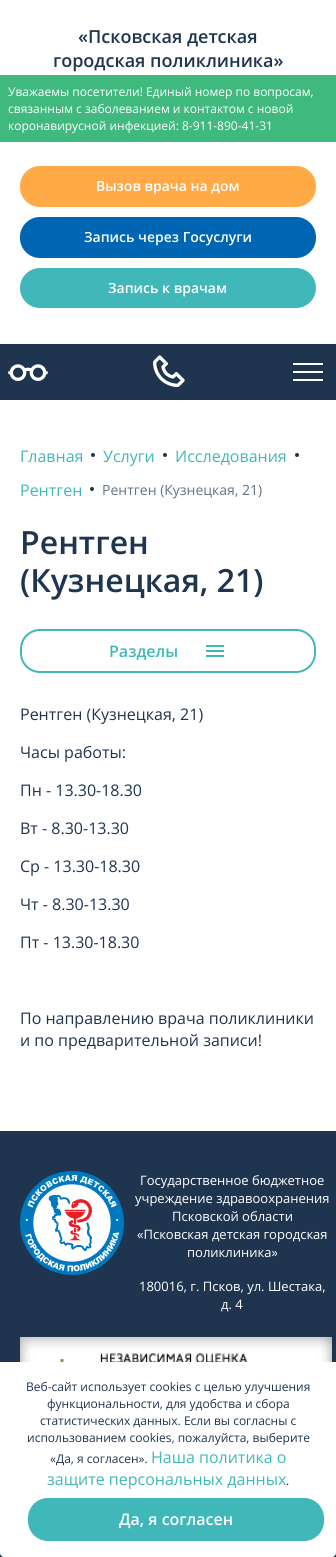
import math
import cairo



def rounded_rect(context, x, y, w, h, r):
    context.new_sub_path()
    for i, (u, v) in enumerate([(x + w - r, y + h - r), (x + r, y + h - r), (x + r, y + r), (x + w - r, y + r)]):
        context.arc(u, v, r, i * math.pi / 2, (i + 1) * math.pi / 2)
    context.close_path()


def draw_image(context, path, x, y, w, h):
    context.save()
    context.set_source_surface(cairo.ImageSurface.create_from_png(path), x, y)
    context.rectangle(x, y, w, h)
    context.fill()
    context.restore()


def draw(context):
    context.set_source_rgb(1, 1, 1)
    context.paint()
    context.set_source_rgb(1, 170 / 255, 70 / 255)
    rounded_rect(context, 21, 167, 294, 39, 19)
    context.fill_preserve()
    context.stroke()
    context.set_source_rgb(0, 102 / 255, 179 / 255)
    rounded_rect(context, 21, 218, 294, 39, 19)
    context.fill_preserve()
    context.stroke()
    context.set_source_rgb(64 / 255, 183 / 255, 185 / 255)
    rounded_rect(context, 21, 269, 294, 38, 19)
    context.fill_preserve()
    context.stroke()
    context.set_source_rgb(64 / 255, 185 / 255, 127 / 255)
    context.rectangle(0, 75, 336, 67)
    context.fill()
    context.set_source_rgb(31 / 255, 53 / 255, 79 / 255)
    context.rectangle(0, 344, 336, 56)
    context.fill()
    draw_image(context, "images/1.png", 8, 364, 40, 17)
    draw_image(context, "images/2.png", 153, 355, 32, 32)
    context.set_source_rgb(1, 1, 1)
    context.rectangle(293, 371, 30, 2)
    context.fill()
    context.rectangle(293, 363, 30, 2)
    context.fill()
    context.rectangle(293, 379, 30, 2)
    context.fill()
    context.set_source_rgb(31 / 255, 53 / 255, 79 / 255)
    context.arc(93, 455, 2, 0, 2 * math.pi)
    context.fill()
    context.arc(165, 455, 2, 0, 2 * math.pi)
    context.fill()
    context.arc(297, 455, 2, 0, 2 * math.pi)
    context.fill()
    context.arc(92, 489, 2, 0, 2 * math.pi)
    context.fill()
    rounded_rect(context, 21, 630, 294, 42, 19)
    context.set_source_rgb(64 / 255, 183 / 255, 185 / 255)
    context.stroke()
    draw_image(context, "images/3.png", 206, 645, 18, 12)
    context.set_source_rgb(31 / 255, 53 / 255, 79 / 255)
    context.rectangle(0, 1131, 336, 426)
    context.fill()
    draw_image(context, "images/4.png", 20, 1171, 104, 104)
    draw_image(context, "images/5.png", 20, 1337, 312, 25)
    context.set_source_rgb(1, 1, 1)
    context.new_path()
    context.move_to(0, 1362)
    context.line_to(336, 1362)
    context.line_to(336, 1553)
    context.curve_to(336, 1555, 334, 1557, 332, 1557)
    context.line_to(4, 1557)
    context.curve_to(2, 1557, 0, 1555, 0, 1553)
    context.close_path()
    context.fill()
    context.set_source_rgb(64 / 255, 183 / 255, 185 / 255)
    rounded_rect(context, 29, 1499, 294, 41, 19)
    context.fill_preserve()
    context.stroke()
    context.select_font_face("Open Sans SemiBold")
    context.set_font_size(18)
    context.set_source_rgb(31 / 255, 53 / 255, 79 / 255)
    context.move_to(78, 43)
    context.show_text("«Псковская детская")
    context.move_to(53, 67)
    context.show_text("городская поликлиника»")
    context.set_font_size(14)
    context.set_source_rgb(1, 1, 1)
    context.move_to(96, 191)
    context.show_text("Вызов врача на дом")
    context.move_to(84, 242)
    context.show_text("Запись через Госуслуги")
    context.move_to(108, 293)
    context.show_text("Запись к врачам")
    context.select_font_face("Open Sans")
    context.set_font_size(12)
    context.move_to(8, 96)
    context.show_text("Уважаемы посетители! Единый номер по вопросам,")
    context.move_to(8, 113)
    context.show_text("связанным с заболеванием и контактом с новой")
    context.move_to(8, 130)
    context.show_text("коронавирусной инфекцией: 8-911-890-41-31")
    context.set_font_size(16)
    context.set_source_rgb(64 / 255, 183 / 255, 185 / 255)
    context.move_to(20, 462)
    context.show_text("Главная")
    context.move_to(103, 462)
    context.show_text("Услуги")
    context.move_to(175, 462)
    context.show_text("Исследования")
    context.move_to(20, 496)
    context.show_text("Рентген")
    context.set_font_size(14)
    context.set_source_rgb(96 / 255, 115 / 255, 138 / 255)
    context.move_to(102, 495)
    context.show_text("Рентген (Кузнецкая, 21)")
    context.select_font_face("Open Sans SemiBold")
    context.set_font_size(32)
    context.set_source_rgb(31 / 255, 53 / 255, 79 / 255)
    context.move_to(20, 554)
    context.show_text("Рентген")
    context.move_to(20, 592)
    context.show_text("(Кузнецкая, 21)")
    context.set_font_size(16)
    context.set_source_rgb(64 / 255, 183 / 255, 185 / 255)
    context.move_to(109, 657)
    context.show_text("Разделы")
    context.select_font_face("Open Sans")
    context.set_source_rgb(31 / 255, 53 / 255, 79 / 255)
    context.move_to(20, 720)
    context.show_text("Рентген (Кузнецкая, 21)")
    context.move_to(20, 758)
    context.show_text("Часы работы:")
    context.move_to(20, 796)
    context.show_text("Пн - 13.30-18.30")
    context.move_to(20, 834)
    context.show_text("Вт - 8.30-13.30")
    context.move_to(20, 872)
    context.show_text("Ср - 13.30-18.30")
    context.move_to(20, 910)
    context.show_text("Чт - 8.30-13.30")
    context.move_to(20, 948)
    context.show_text("Пт - 13.30-18.30")
    context.move_to(20, 1024)
    context.show_text("По направлению врача поликлиники")
    context.move_to(20, 1046)
    context.show_text("и по предварительной записи!")
    context.set_font_size(13)
    context.set_source_rgb(1, 1, 1)
    context.move_to(140, 1185)
    context.show_text("Государственное бюджетное")
    context.move_to(135, 1203)
    context.show_text("учреждение здравоохранения")
    context.move_to(172, 1221)
    context.show_text("Псковской области")
    context.move_to(137, 1239)
    context.show_text("«Псковская детская городская")
    context.move_to(187, 1257)
    context.show_text("поликлиника»")
    context.move_to(139, 1291)
    context.show_text("180016, г. Псков, ул. Шестака,")
    context.move_to(221, 1309)
    context.show_text("д. 4")
    context.set_font_size(12)
    context.set_source_rgb(31 / 255, 53 / 255, 79 / 255)
    context.move_to(26, 1391)
    context.show_text("Веб-сайт использует cookies с целью улучшения")
    context.move_to(47, 1408)
    context.show_text("функциональности, для удобства и сбора")
    context.move_to(40, 1425)
    context.show_text("статистических данных. Если вы согласны с")
    context.move_to(27, 1442)
    context.show_text("использованием cookies, пожалуйста, выберите")
    context.move_to(50, 1463)
    context.show_text("«Да, я согласен».")
    context.set_font_size(16)
    context.set_source_rgb(64 / 255, 183 / 255, 185 / 255)
    context.move_to(151, 1463)
    context.show_text("Наша политика о")
    context.move_to(47, 1485)
    context.show_text("защите персональных данных")
    context.set_font_size(12)
    context.set_source_rgb(31 / 255, 53 / 255, 79 / 255)
    context.move_to(286, 1485)
    context.show_text(".")
    context.select_font_face("Open Sans SemiBold")
    context.set_font_size(16)
    context.set_source_rgb(1, 1, 1)
    context.move_to(119, 1525)
    context.show_text("Да, я согласен")


surface = cairo.ImageSurface(cairo.Format.RGB24, 336, 1557)
context = cairo.Context(surface)
options = cairo.FontOptions()
options.set_hint_metrics(cairo.HintMetrics.OFF)
options.set_hint_style(cairo.HintStyle.NONE)
context.set_font_options(options)
context.set_miter_limit(4)
draw(context)
surface.write_to_png("out.png")
